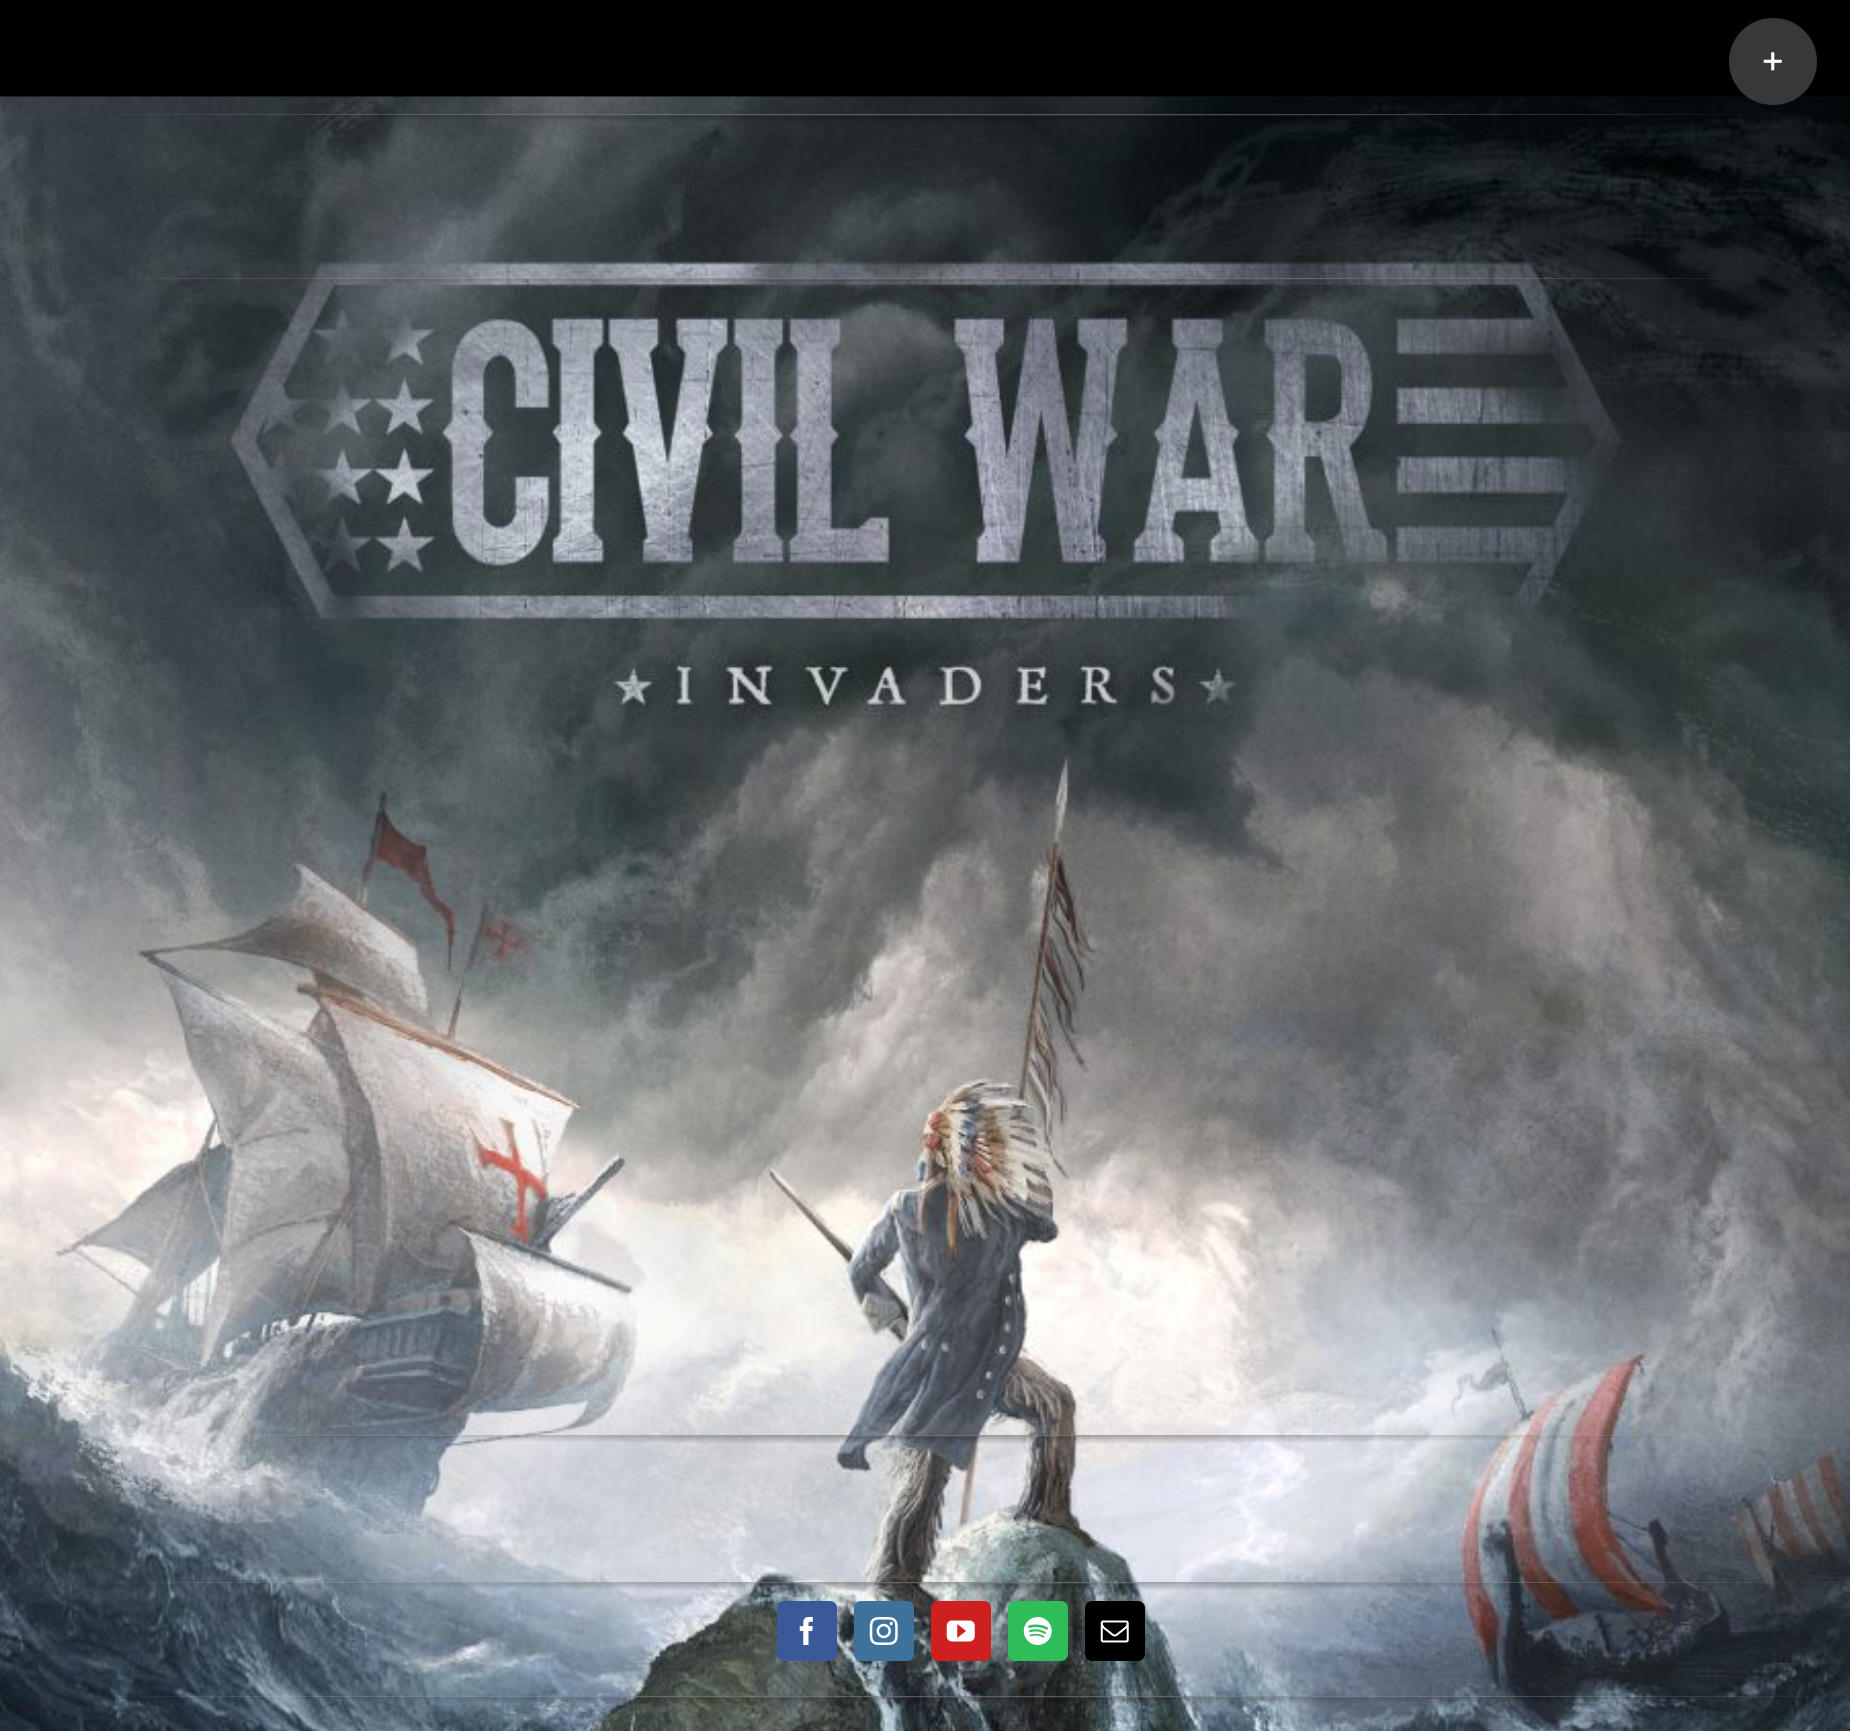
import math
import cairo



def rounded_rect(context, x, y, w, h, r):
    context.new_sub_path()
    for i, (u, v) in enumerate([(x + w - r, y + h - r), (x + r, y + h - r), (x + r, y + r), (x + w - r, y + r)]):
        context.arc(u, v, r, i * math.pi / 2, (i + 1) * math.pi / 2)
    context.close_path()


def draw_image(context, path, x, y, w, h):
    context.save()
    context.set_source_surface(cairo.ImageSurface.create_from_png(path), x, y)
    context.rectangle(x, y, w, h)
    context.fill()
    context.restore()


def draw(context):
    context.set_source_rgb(0, 0, 0)
    context.paint()
    draw_image(context, "images/2.png", 0, 96, 1850, 1635)
    context.set_source_rgb(54 / 255, 56 / 255, 57 / 255)
    rounded_rect(context, 1729, 18, 88, 87, 43.5)
    context.fill()
    draw_image(context, "images/1.png", 1763, 52, 19, 19)
    context.set_source_rgb(59 / 255, 89 / 255, 152 / 255)
    rounded_rect(context, 778, 1602, 58, 58, 6)
    context.fill_preserve()
    context.stroke()
    draw_image(context, "images/3.png", 799, 1617, 14, 28)
    context.set_source_rgb(63 / 255, 114 / 255, 155 / 255)
    rounded_rect(context, 855, 1602, 58, 58, 6)
    context.fill_preserve()
    context.stroke()
    draw_image(context, "images/4.png", 869, 1617, 29, 28)
    context.set_source_rgb(205 / 255, 32 / 255, 31 / 255)
    rounded_rect(context, 932, 1602, 58, 58, 6)
    context.fill_preserve()
    context.stroke()
    draw_image(context, "images/5.png", 946, 1620, 29, 22)
    context.set_source_rgb(46 / 255, 189 / 255, 89 / 255)
    rounded_rect(context, 1009, 1602, 58, 58, 6)
    context.fill_preserve()
    context.stroke()
    draw_image(context, "images/6.png", 1023, 1617, 29, 28)
    context.set_source_rgb(0, 0, 0)
    rounded_rect(context, 1086, 1602, 58, 58, 6)
    context.fill_preserve()
    context.stroke()
    draw_image(context, "images/7.png", 1100, 1620, 29, 23)


surface = cairo.ImageSurface(cairo.Format.RGB24, 1850, 1731)
context = cairo.Context(surface)
options = cairo.FontOptions()
options.set_hint_metrics(cairo.HintMetrics.OFF)
options.set_hint_style(cairo.HintStyle.NONE)
context.set_font_options(options)
context.set_miter_limit(4)
draw(context)
surface.write_to_png("out.png")
